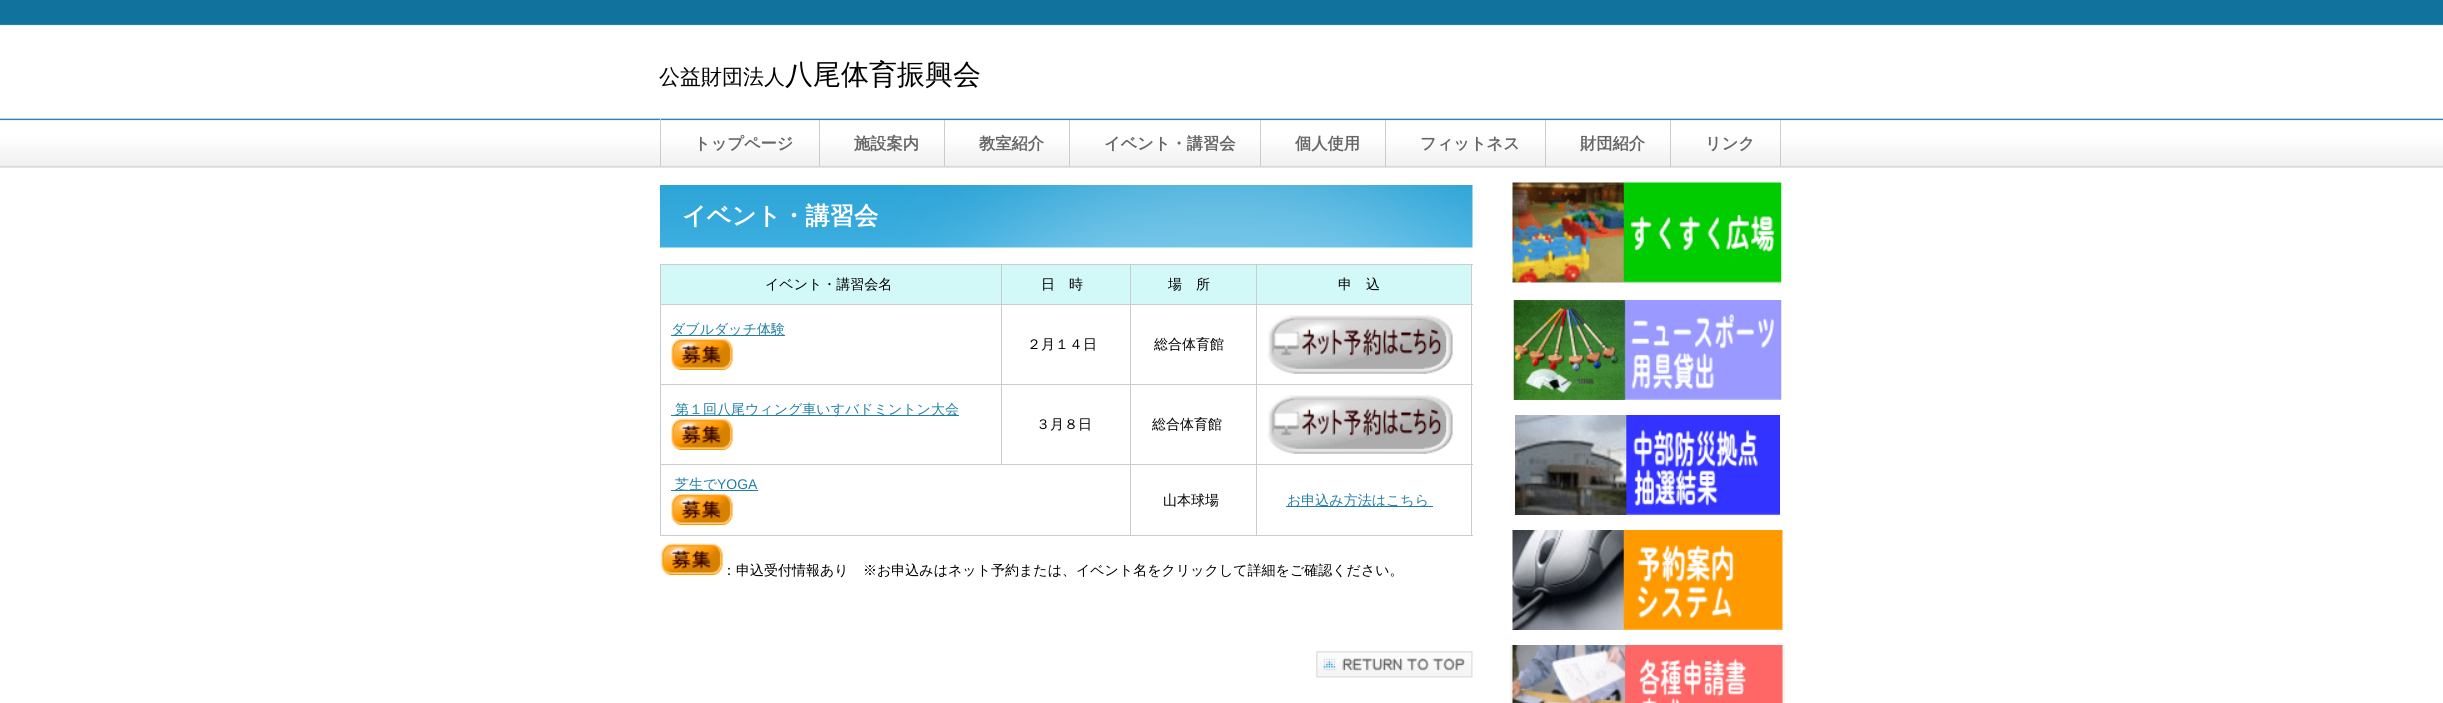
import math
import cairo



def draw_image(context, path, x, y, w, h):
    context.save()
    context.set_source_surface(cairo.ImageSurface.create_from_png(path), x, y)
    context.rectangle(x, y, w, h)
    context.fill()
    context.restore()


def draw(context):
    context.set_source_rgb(1, 1, 1)
    context.paint()
    draw_image(context, "images/1.png", 0, 0, 2443, 168)
    context.set_source_rgb(204 / 255, 204 / 255, 204 / 255)
    context.rectangle(660, 119, 1, 47)
    context.fill()
    context.rectangle(819, 120, 1, 46)
    context.fill()
    context.rectangle(944, 120, 1, 46)
    context.fill()
    context.rectangle(1069, 120, 1, 46)
    context.fill()
    context.rectangle(1260, 120, 1, 46)
    context.fill()
    context.rectangle(1385, 120, 1, 46)
    context.fill()
    context.rectangle(1545, 120, 1, 46)
    context.fill()
    context.rectangle(1670, 120, 1, 46)
    context.fill()
    context.rectangle(1780, 120, 1, 46)
    context.fill()
    draw_image(context, "images/2.png", 660, 185, 813, 63)
    context.rectangle(660, 264, 813, 1)
    context.fill()
    context.rectangle(660, 264, 1, 272)
    context.fill()
    context.set_source_rgb(210 / 255, 249 / 255, 247 / 255)
    context.rectangle(661, 265, 340, 39)
    context.fill()
    context.rectangle(1002, 265, 128, 39)
    context.fill()
    context.set_source_rgb(204 / 255, 204 / 255, 204 / 255)
    context.rectangle(1256, 304, 217, 1)
    context.fill()
    context.rectangle(1256, 384, 217, 1)
    context.fill()
    context.rectangle(1256, 464, 217, 1)
    context.fill()
    context.rectangle(1471, 464, 1, 72)
    context.fill()
    context.rectangle(1256, 535, 217, 1)
    context.fill()
    context.rectangle(1256, 464, 1, 72)
    context.fill()
    context.rectangle(1130, 464, 128, 1)
    context.fill()
    context.rectangle(1256, 384, 1, 81)
    context.fill()
    context.rectangle(1130, 384, 128, 1)
    context.fill()
    context.rectangle(1256, 304, 1, 81)
    context.fill()
    context.rectangle(1130, 304, 128, 1)
    context.fill()
    context.rectangle(1130, 535, 128, 1)
    context.fill()
    context.rectangle(1130, 464, 1, 72)
    context.fill()
    context.rectangle(660, 464, 471, 1)
    context.fill()
    context.rectangle(1130, 384, 1, 81)
    context.fill()
    context.rectangle(1001, 384, 130, 1)
    context.fill()
    context.rectangle(1130, 304, 1, 81)
    context.fill()
    context.rectangle(1001, 304, 130, 1)
    context.fill()
    context.rectangle(1001, 384, 1, 81)
    context.fill()
    context.rectangle(660, 384, 343, 1)
    context.fill()
    context.rectangle(1001, 304, 1, 81)
    context.fill()
    context.rectangle(660, 304, 343, 1)
    context.fill()
    context.rectangle(1001, 264, 1, 41)
    context.fill()
    context.set_source_rgb(210 / 255, 249 / 255, 247 / 255)
    context.rectangle(1131, 265, 125, 39)
    context.fill()
    context.set_source_rgb(204 / 255, 204 / 255, 204 / 255)
    context.rectangle(1130, 264, 1, 41)
    context.fill()
    context.set_source_rgb(210 / 255, 249 / 255, 247 / 255)
    context.rectangle(1257, 265, 214, 39)
    context.fill()
    context.set_source_rgb(204 / 255, 204 / 255, 204 / 255)
    context.rectangle(1256, 264, 1, 41)
    context.fill()
    context.set_source_rgb(31 / 255, 126 / 255, 167 / 255)
    context.rectangle(671, 335, 114, 1)
    context.fill()
    draw_image(context, "images/3.png", 671, 338, 62, 32)
    context.set_source_rgb(204 / 255, 204 / 255, 204 / 255)
    context.rectangle(1471, 384, 1, 81)
    context.fill()
    context.rectangle(1471, 264, 1, 121)
    context.fill()
    draw_image(context, "images/4.png", 1267, 315, 186, 59)
    context.set_source_rgb(31 / 255, 126 / 255, 167 / 255)
    context.rectangle(671, 415, 288, 1)
    context.fill()
    draw_image(context, "images/3.png", 671, 418, 62, 32)
    draw_image(context, "images/4.png", 1267, 395, 186, 59)
    context.set_source_rgb(204 / 255, 204 / 255, 204 / 255)
    context.rectangle(660, 535, 471, 1)
    context.fill()
    context.set_source_rgb(31 / 255, 126 / 255, 167 / 255)
    context.rectangle(671, 490, 87, 1)
    context.fill()
    draw_image(context, "images/3.png", 671, 493, 62, 32)
    context.rectangle(1286, 506, 147, 1)
    context.fill()
    draw_image(context, "images/3.png", 661, 543, 62, 32)
    draw_image(context, "images/5.png", 1316, 651, 157, 27)
    draw_image(context, "images/6.png", 1512, 182, 270, 101)
    draw_image(context, "images/7.png", 1513, 300, 269, 100)
    draw_image(context, "images/8.png", 1515, 415, 265, 100)
    draw_image(context, "images/9.png", 1512, 530, 271, 100)
    context.set_source_rgb(243 / 255, 243 / 255, 243 / 255)
    context.rectangle(1510, 645, 275, 58)
    context.fill()
    draw_image(context, "images/10.png", 1512, 645, 271, 58)
    context.select_font_face("WenQuanYi Zen Hei Medium")
    context.set_font_size(21)
    context.set_source_rgb(0, 0, 0)
    context.move_to(659, 84)
    context.show_text("公益財団法人")
    context.set_font_size(28)
    context.move_to(785, 84)
    context.show_text("八尾体育振興会")
    context.select_font_face("WenQuanYi Zen Hei", cairo.FontSlant.NORMAL, cairo.FontWeight.BOLD)
    context.set_font_size(16.25)
    context.set_source_rgb(102 / 255, 102 / 255, 102 / 255)
    context.move_to(694, 149)
    context.show_text("トップページ")
    context.move_to(854, 149)
    context.show_text("施設案内")
    context.move_to(979, 149)
    context.show_text("教室紹介")
    context.move_to(1104, 149)
    context.show_text("イベント・講習会")
    context.move_to(1295, 149)
    context.show_text("個人使用")
    context.move_to(1420, 149)
    context.show_text("フィットネス")
    context.move_to(1580, 149)
    context.show_text("財団紹介")
    context.move_to(1705, 149)
    context.show_text("リンク")
    context.set_font_size(24.25)
    context.set_source_rgb(1, 1, 1)
    context.move_to(682, 224)
    context.show_text("イベント・講習会")
    context.select_font_face("WenQuanYi Zen Hei Medium")
    context.set_font_size(14)
    context.set_source_rgb(0, 0, 0)
    context.move_to(765, 289)
    context.show_text("イベント・講習会名")
    context.move_to(1041, 289)
    context.show_text("日　時")
    context.move_to(1168, 289)
    context.show_text("場　所")
    context.move_to(1338, 289)
    context.show_text("申　込")
    context.set_source_rgb(31 / 255, 126 / 255, 167 / 255)
    context.move_to(671, 334)
    context.show_text("ダブルダッチ体験")
    context.set_source_rgb(0, 0, 0)
    context.move_to(1027, 349)
    context.show_text("２月１４日")
    context.move_to(1154, 349)
    context.show_text("総合体育館")
    context.set_source_rgb(31 / 255, 126 / 255, 167 / 255)
    context.move_to(675, 414)
    context.show_text("第１回八尾ウィング車いすバドミントン大会")
    context.set_source_rgb(0, 0, 0)
    context.move_to(1036, 429)
    context.show_text("３月８日")
    context.move_to(1152, 429)
    context.show_text("総合体育館")
    context.set_source_rgb(31 / 255, 126 / 255, 167 / 255)
    context.move_to(675, 489)
    context.show_text("芝生で")
    context.select_font_face("Liberation Sans")
    context.move_to(717, 489)
    context.show_text("YOGA")
    context.select_font_face("WenQuanYi Zen Hei Medium")
    context.set_source_rgb(0, 0, 0)
    context.move_to(1163, 505)
    context.show_text("山本球場")
    context.set_source_rgb(31 / 255, 126 / 255, 167 / 255)
    context.move_to(1287, 505)
    context.show_text("お申込み方法はこちら")
    context.set_source_rgb(0, 0, 0)
    context.move_to(722, 575)
    context.show_text("：申込受付情報あり")
    context.move_to(863, 575)
    context.show_text("※お申込みはネット予約または、イベント名をクリックして詳細をご確認ください。")


surface = cairo.ImageSurface(cairo.Format.RGB24, 2443, 703)
context = cairo.Context(surface)
options = cairo.FontOptions()
options.set_hint_metrics(cairo.HintMetrics.OFF)
options.set_hint_style(cairo.HintStyle.NONE)
context.set_font_options(options)
context.set_miter_limit(4)
draw(context)
surface.write_to_png("out.png")
